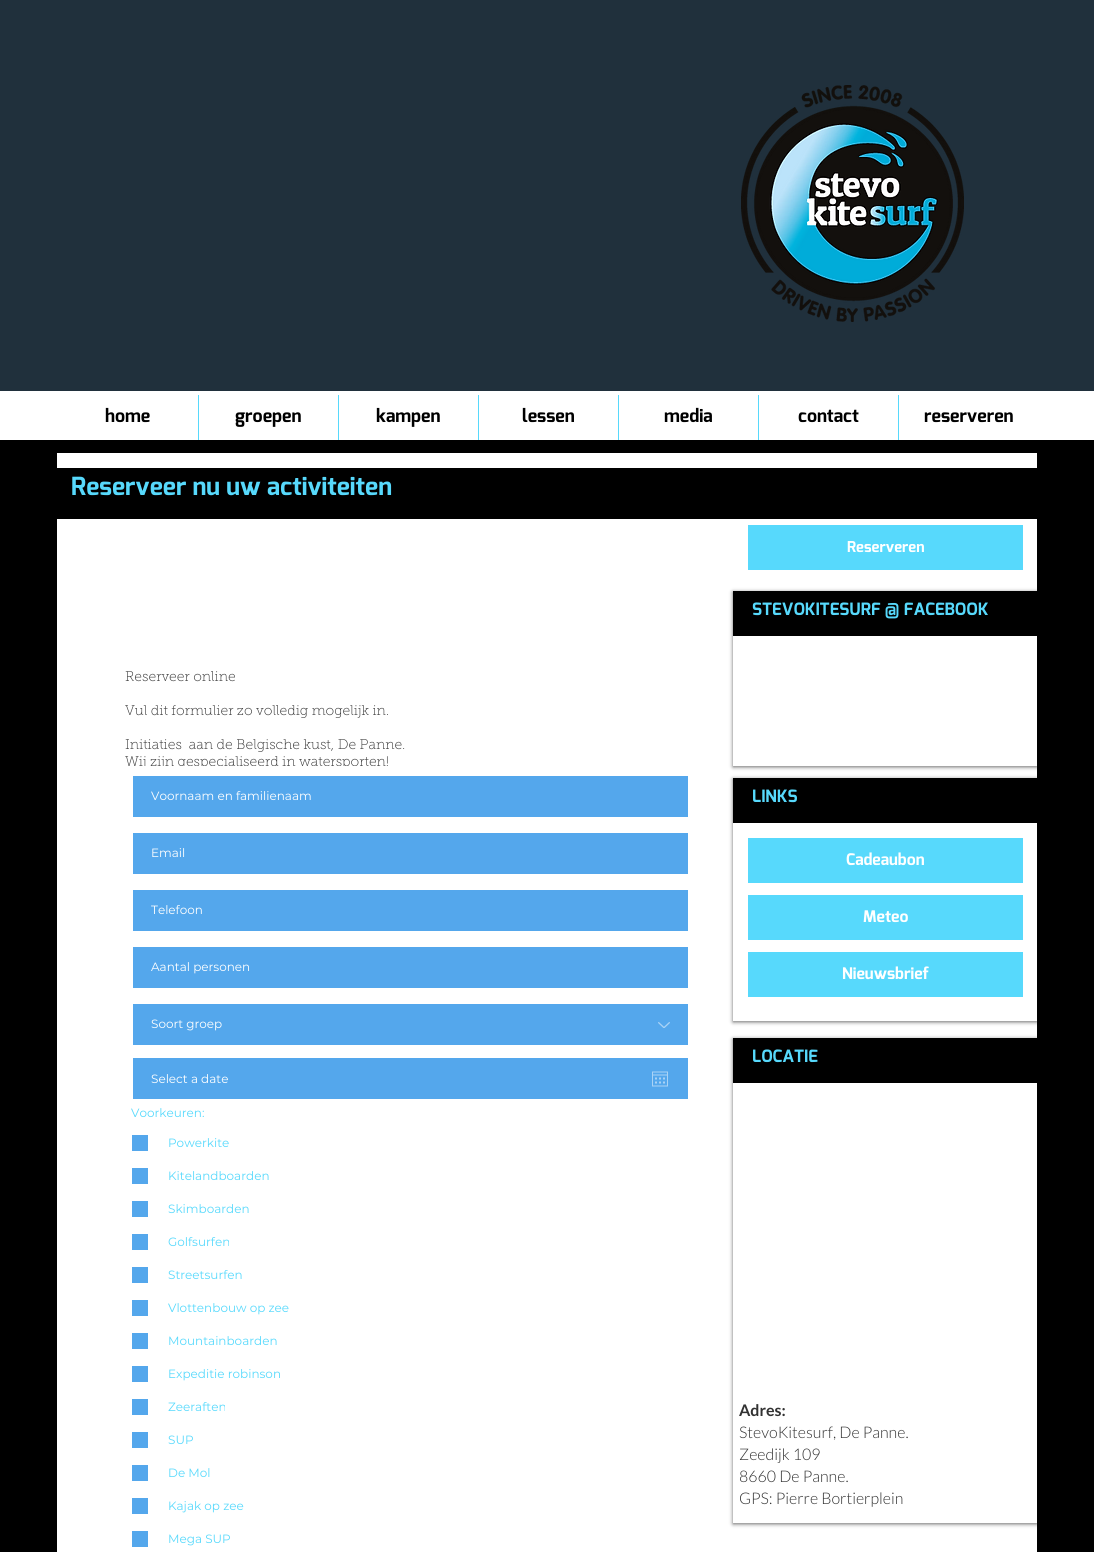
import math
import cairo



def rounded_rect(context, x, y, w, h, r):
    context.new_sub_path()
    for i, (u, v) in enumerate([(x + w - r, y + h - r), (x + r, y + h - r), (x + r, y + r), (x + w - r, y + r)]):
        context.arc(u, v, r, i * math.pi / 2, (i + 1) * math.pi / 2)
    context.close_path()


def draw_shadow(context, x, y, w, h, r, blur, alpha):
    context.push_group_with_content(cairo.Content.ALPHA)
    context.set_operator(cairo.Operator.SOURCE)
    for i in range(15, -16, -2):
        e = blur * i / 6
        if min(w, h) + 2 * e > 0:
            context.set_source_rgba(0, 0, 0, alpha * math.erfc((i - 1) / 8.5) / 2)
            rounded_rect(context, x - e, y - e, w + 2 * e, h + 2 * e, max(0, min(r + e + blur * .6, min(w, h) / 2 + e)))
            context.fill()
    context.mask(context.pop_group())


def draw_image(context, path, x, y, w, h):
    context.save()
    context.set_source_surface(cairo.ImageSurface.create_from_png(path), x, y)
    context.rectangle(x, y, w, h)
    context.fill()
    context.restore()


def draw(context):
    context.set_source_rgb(0, 0, 0)
    context.paint()
    context.set_source_rgb(32 / 255, 48 / 255, 60 / 255)
    context.rectangle(0, 0, 1094, 391)
    context.fill()
    draw_image(context, "images/1.png", 741, 85, 223, 237)
    context.set_source_rgb(1, 1, 1)
    context.rectangle(0, 391, 1094, 49)
    context.fill()
    context.set_source_rgb(87 / 255, 217 / 255, 252 / 255)
    context.rectangle(198, 395, 1, 45)
    context.fill()
    context.rectangle(338, 395, 1, 45)
    context.fill()
    context.rectangle(478, 395, 1, 45)
    context.fill()
    context.rectangle(618, 395, 1, 45)
    context.fill()
    context.rectangle(758, 395, 1, 45)
    context.fill()
    context.rectangle(898, 395, 1, 45)
    context.fill()
    context.set_source_rgb(1, 1, 1)
    context.rectangle(57, 453, 980, 1099)
    context.fill()
    context.set_source_rgb(0, 0, 0)
    context.rectangle(57, 468, 980, 51)
    context.fill()
    context.set_source_rgb(84 / 255, 167 / 255, 236 / 255)
    context.rectangle(133, 776, 555, 41)
    context.fill()
    context.rectangle(133, 833, 555, 41)
    context.fill()
    context.rectangle(133, 890, 555, 41)
    context.fill()
    context.rectangle(133, 947, 555, 41)
    context.fill()
    context.rectangle(133, 1004, 555, 41)
    context.fill()
    draw_image(context, "images/2.png", 658, 1022, 12, 6)
    context.rectangle(133, 1058, 555, 41)
    context.fill()
    draw_image(context, "images/3.png", 652, 1071, 16, 16)
    context.rectangle(132, 1135, 16, 16)
    context.fill()
    context.rectangle(132, 1168, 16, 16)
    context.fill()
    context.rectangle(132, 1201, 16, 16)
    context.fill()
    context.rectangle(132, 1234, 16, 16)
    context.fill()
    context.rectangle(132, 1267, 16, 16)
    context.fill()
    context.rectangle(132, 1300, 16, 16)
    context.fill()
    context.rectangle(132, 1333, 16, 16)
    context.fill()
    context.rectangle(132, 1366, 16, 16)
    context.fill()
    context.rectangle(132, 1399, 16, 16)
    context.fill()
    context.rectangle(132, 1432, 16, 16)
    context.fill()
    context.rectangle(132, 1465, 16, 16)
    context.fill()
    context.rectangle(132, 1498, 16, 16)
    context.fill()
    context.rectangle(132, 1531, 16, 16)
    context.fill()
    context.set_source_rgb(87 / 255, 217 / 255, 252 / 255)
    context.rectangle(748, 525, 275, 45)
    context.fill()
    context.save()
    context.set_fill_rule(cairo.FillRule.EVEN_ODD)
    context.new_path()
    context.move_to(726, 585)
    context.line_to(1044, 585)
    context.line_to(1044, 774)
    context.line_to(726, 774)
    context.close_path()
    context.move_to(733, 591)
    context.line_to(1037, 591)
    context.line_to(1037, 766)
    context.line_to(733, 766)
    context.close_path()
    context.clip()
    context.set_source_rgb(0, 0, 0)
    draw_shadow(context, 733, 592, 304, 175, 0, 2, 0.6)
    context.restore()
    context.set_source_rgb(0, 0, 0)
    context.rectangle(733, 591, 304, 45)
    context.fill()
    context.save()
    context.set_fill_rule(cairo.FillRule.EVEN_ODD)
    context.new_path()
    context.move_to(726, 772)
    context.line_to(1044, 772)
    context.line_to(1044, 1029)
    context.line_to(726, 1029)
    context.close_path()
    context.move_to(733, 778)
    context.line_to(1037, 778)
    context.line_to(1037, 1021)
    context.line_to(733, 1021)
    context.close_path()
    context.clip()
    context.set_source_rgb(0, 0, 0)
    draw_shadow(context, 733, 779, 304, 243, 0, 2, 0.6)
    context.restore()
    context.rectangle(733, 778, 304, 45)
    context.fill()
    context.set_source_rgb(87 / 255, 217 / 255, 252 / 255)
    context.rectangle(748, 838, 275, 45)
    context.fill()
    context.rectangle(748, 895, 275, 45)
    context.fill()
    context.rectangle(748, 952, 275, 45)
    context.fill()
    context.save()
    context.set_fill_rule(cairo.FillRule.EVEN_ODD)
    context.new_path()
    context.move_to(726, 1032)
    context.line_to(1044, 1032)
    context.line_to(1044, 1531)
    context.line_to(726, 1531)
    context.close_path()
    context.move_to(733, 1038)
    context.line_to(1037, 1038)
    context.line_to(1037, 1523)
    context.line_to(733, 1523)
    context.close_path()
    context.clip()
    context.set_source_rgb(0, 0, 0)
    draw_shadow(context, 733, 1039, 304, 485, 0, 2, 0.6)
    context.restore()
    context.set_source_rgb(0, 0, 0)
    context.rectangle(733, 1038, 304, 45)
    context.fill()
    context.select_font_face("Exo", cairo.FontSlant.NORMAL, cairo.FontWeight.BOLD)
    context.set_font_size(18)
    context.move_to(105, 422)
    context.show_text("home")
    context.move_to(235, 422)
    context.show_text("groepen")
    context.move_to(376, 422)
    context.show_text("kampen")
    context.move_to(522, 422)
    context.show_text("lessen")
    context.move_to(664, 422)
    context.show_text("media")
    context.move_to(798, 422)
    context.show_text("contact")
    context.move_to(924, 422)
    context.show_text("reserveren")
    context.set_font_size(25)
    context.set_source_rgb(87 / 255, 217 / 255, 252 / 255)
    context.move_to(71, 495)
    context.show_text("Reserveer nu uw activiteiten")
    context.select_font_face("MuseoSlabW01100 Thin")
    context.set_font_size(14)
    context.set_source_rgb(50 / 255, 50 / 255, 50 / 255)
    context.move_to(125, 681)
    context.show_text("Reserveer online")
    context.move_to(125, 715)
    context.show_text("Vul dit formulier zo volledig mogelijk in.")
    context.move_to(125, 749)
    context.show_text("Initiaties  aan de Belgische kust, De Panne.")
    context.move_to(125, 766)
    context.show_text("Wij zijn gespecialiseerd in watersporten!")
    context.set_source_rgb(1, 1, 1)
    context.rectangle(142, 766, 232, 3)
    context.fill()
    context.select_font_face("Montserrat")
    context.set_font_size(12)
    context.move_to(151, 800)
    context.show_text("Voornaam en familienaam")
    context.move_to(151, 857)
    context.show_text("Email")
    context.move_to(151, 914)
    context.show_text("Telefoon")
    context.move_to(151, 971)
    context.show_text("Aantal personen")
    context.move_to(151, 1028)
    context.show_text("Soort groep")
    context.move_to(151, 1083)
    context.show_text("Select a date")
    context.set_source_rgb(87 / 255, 217 / 255, 252 / 255)
    context.move_to(131, 1117)
    context.show_text("Voorkeuren:")
    context.move_to(168, 1147)
    context.show_text("Powerkite")
    context.move_to(168, 1180)
    context.show_text("Kitelandboarden")
    context.move_to(168, 1213)
    context.show_text("Skimboarden")
    context.move_to(168, 1246)
    context.show_text("Golfsurfen")
    context.move_to(168, 1279)
    context.show_text("Streetsurfen")
    context.move_to(168, 1312)
    context.show_text("Vlottenbouw op zee")
    context.move_to(168, 1345)
    context.show_text("Mountainboarden")
    context.move_to(168, 1378)
    context.show_text("Expeditie robinson")
    context.move_to(168, 1411)
    context.show_text("Zeeraften")
    context.move_to(168, 1444)
    context.show_text("SUP")
    context.move_to(168, 1477)
    context.show_text("De Mol")
    context.move_to(168, 1510)
    context.show_text("Kajak op zee")
    context.move_to(168, 1543)
    context.show_text("Mega SUP")
    context.select_font_face("Exo", cairo.FontSlant.NORMAL, cairo.FontWeight.BOLD)
    context.set_font_size(15)
    context.set_source_rgb(1, 1, 1)
    context.move_to(847, 552)
    context.show_text("Reserveren")
    context.set_font_size(17)
    context.set_source_rgb(87 / 255, 217 / 255, 252 / 255)
    context.move_to(752, 615)
    context.show_text("STEVOKITESURF @ FACEBOOK")
    context.move_to(752, 802)
    context.show_text("LINKS")
    context.set_font_size(16)
    context.set_source_rgb(1, 1, 1)
    context.move_to(846, 865)
    context.show_text("Cadeaubon")
    context.move_to(863, 922)
    context.show_text("Meteo")
    context.move_to(842, 979)
    context.show_text("Nieuwsbrief")
    context.set_font_size(17)
    context.set_source_rgb(87 / 255, 217 / 255, 252 / 255)
    context.move_to(752, 1062)
    context.show_text("LOCATIE")
    context.select_font_face("Lato", cairo.FontSlant.NORMAL, cairo.FontWeight.BOLD)
    context.set_font_size(16)
    context.set_source_rgb(50 / 255, 50 / 255, 50 / 255)
    context.move_to(739, 1416)
    context.show_text("Adres:")
    context.select_font_face("Lato Light")
    context.move_to(739, 1438)
    context.show_text("StevoKitesurf, De Panne.")
    context.move_to(739, 1460)
    context.show_text("Zeedijk 109")
    context.move_to(739, 1482)
    context.show_text("8660 De Panne.")
    context.move_to(739, 1504)
    context.show_text("GPS: Pierre Bortierplein")


surface = cairo.ImageSurface(cairo.Format.RGB24, 1094, 1552)
context = cairo.Context(surface)
options = cairo.FontOptions()
options.set_hint_metrics(cairo.HintMetrics.OFF)
options.set_hint_style(cairo.HintStyle.NONE)
context.set_font_options(options)
context.set_miter_limit(4)
draw(context)
surface.write_to_png("out.png")
